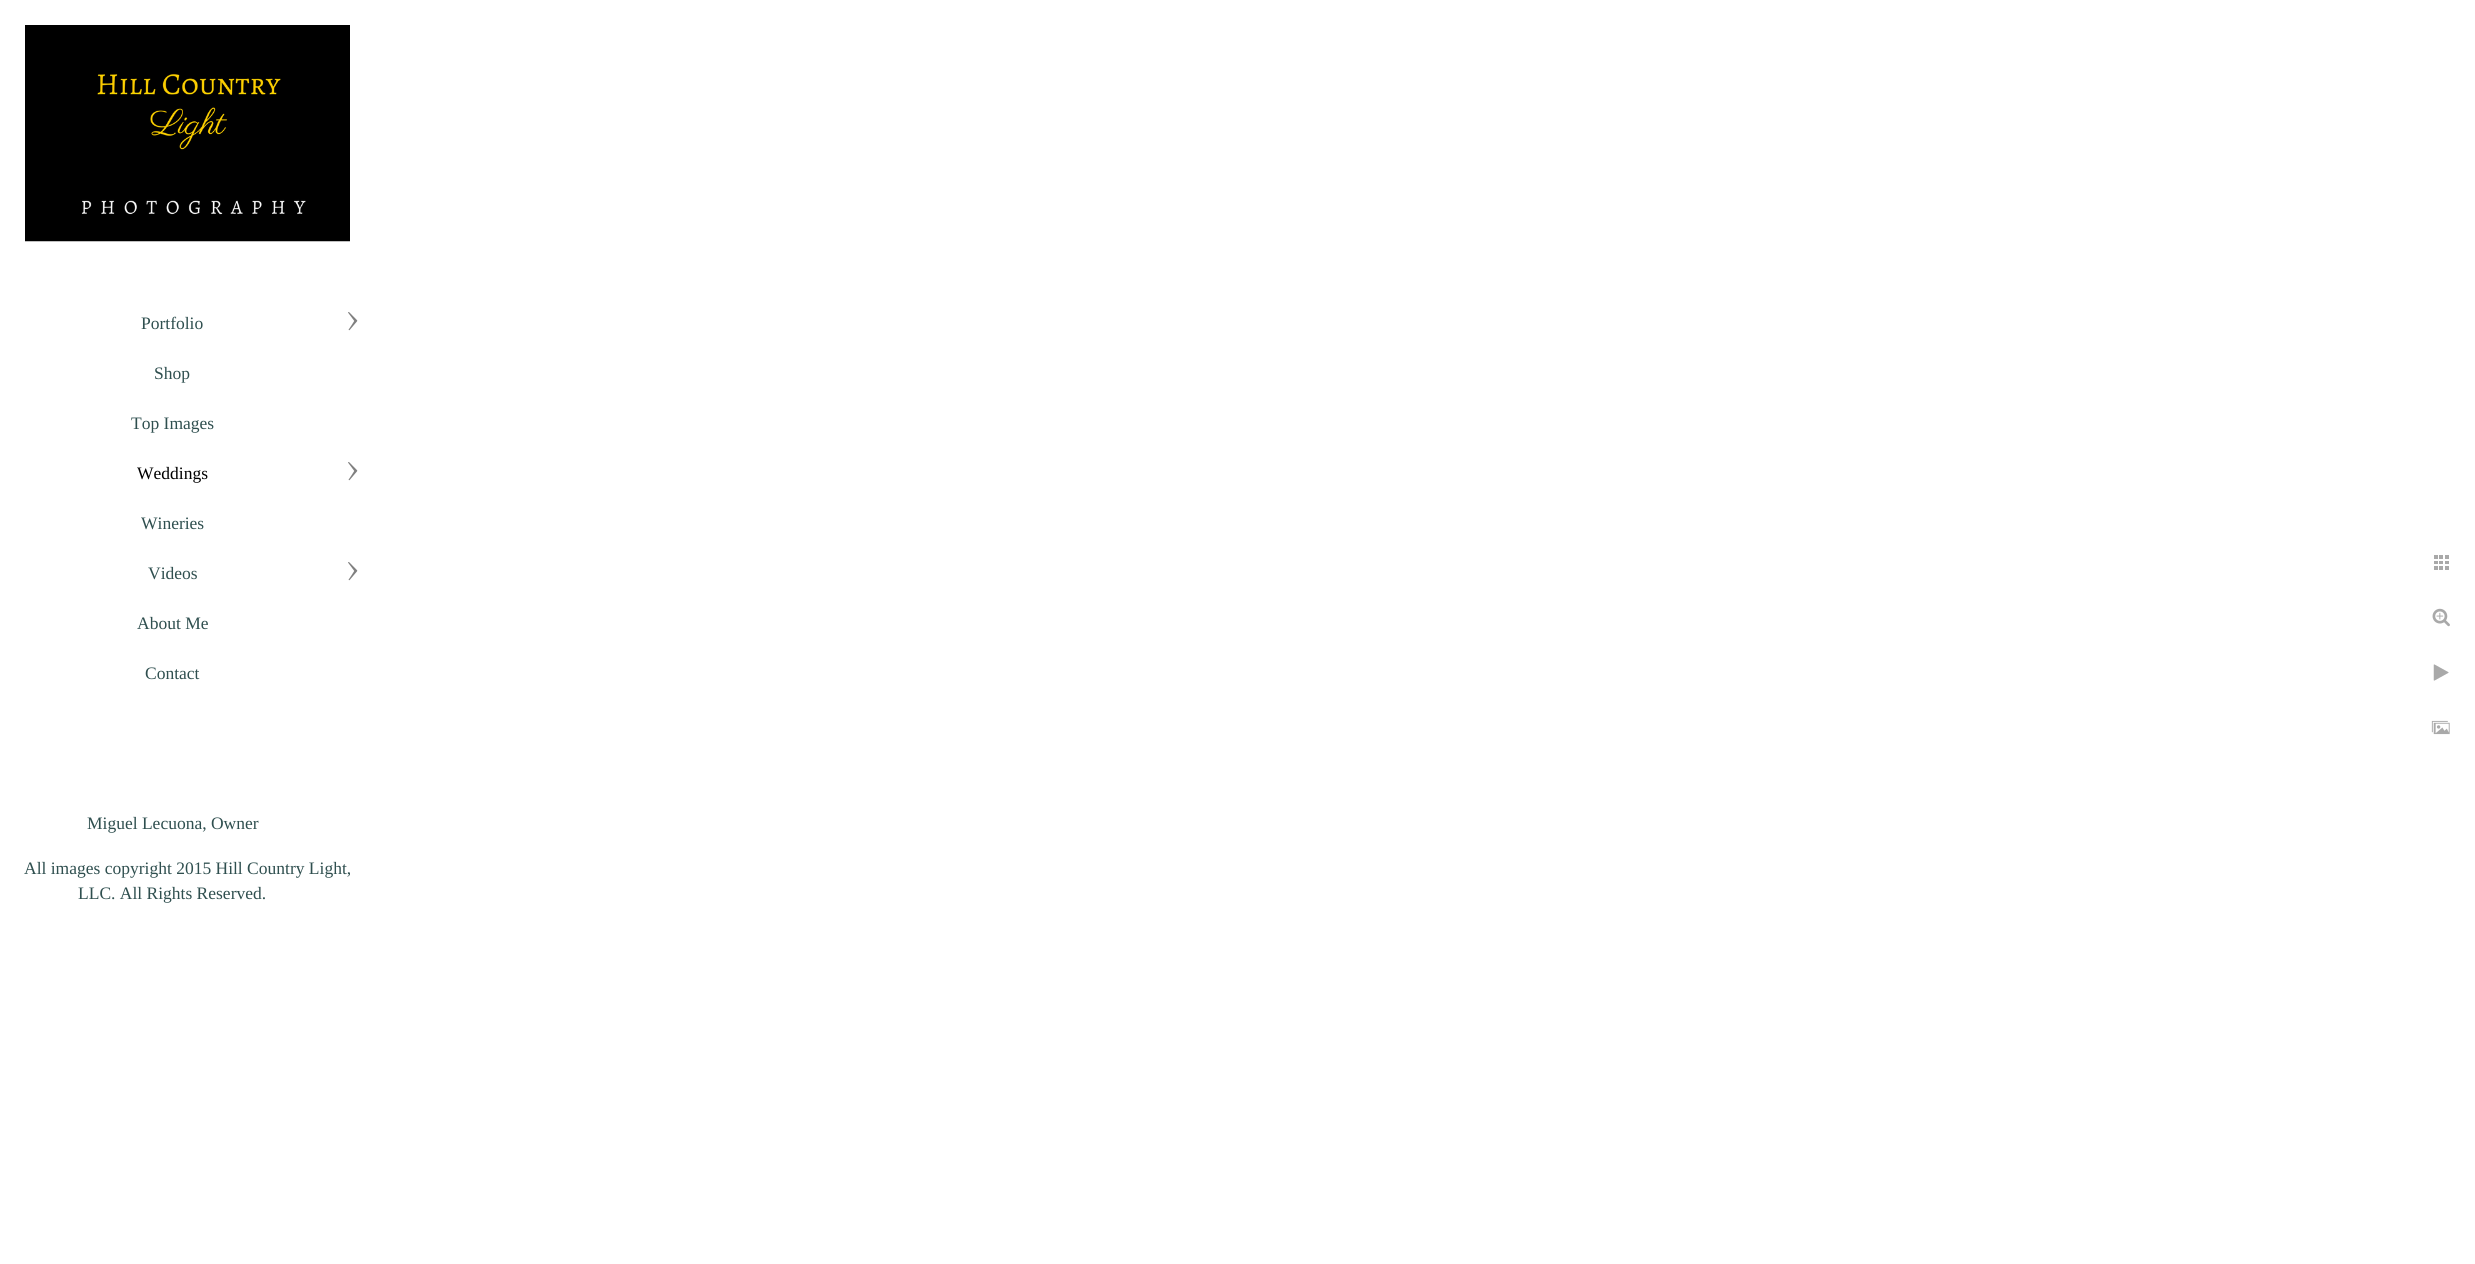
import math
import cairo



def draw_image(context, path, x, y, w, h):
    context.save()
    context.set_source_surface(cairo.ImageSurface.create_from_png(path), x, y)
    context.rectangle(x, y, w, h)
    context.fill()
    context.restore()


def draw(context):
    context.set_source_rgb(1, 1, 1)
    context.paint()
    draw_image(context, "images/1.png", 25, 25, 325, 217)
    draw_image(context, "images/2.png", 348, 312, 10, 19)
    draw_image(context, "images/2.png", 348, 462, 10, 19)
    draw_image(context, "images/2.png", 348, 562, 10, 19)
    draw_image(context, "images/3.png", 2434, 555, 15, 15)
    draw_image(context, "images/4.png", 2432, 608, 18, 19)
    draw_image(context, "images/5.png", 2433, 664, 16, 17)
    draw_image(context, "images/6.png", 2431, 720, 19, 15)
    context.select_font_face("Liberation Serif")
    context.set_font_size(17.5)
    context.set_source_rgb(47 / 255, 79 / 255, 79 / 255)
    context.move_to(141, 329)
    context.show_text("Portfolio")
    context.move_to(154, 379)
    context.show_text("Shop")
    context.move_to(131, 429)
    context.show_text("Top Images")
    context.set_source_rgb(0, 0, 0)
    context.move_to(137, 479)
    context.show_text("Weddings")
    context.set_source_rgb(47 / 255, 79 / 255, 79 / 255)
    context.move_to(141, 529)
    context.show_text("Wineries")
    context.move_to(148, 579)
    context.show_text("Videos")
    context.move_to(137, 629)
    context.show_text("About Me")
    context.move_to(145, 679)
    context.show_text("Contact")
    context.move_to(87, 829)
    context.show_text("Miguel Lecuona, Owner")
    context.move_to(24, 874)
    context.show_text("All images copyright 2015 Hill Country Light,")
    context.move_to(78, 899)
    context.show_text("LLC. All Rights Reserved.")


surface = cairo.ImageSurface(cairo.Format.RGB24, 2475, 1264)
context = cairo.Context(surface)
options = cairo.FontOptions()
options.set_hint_metrics(cairo.HintMetrics.OFF)
options.set_hint_style(cairo.HintStyle.NONE)
context.set_font_options(options)
context.set_miter_limit(4)
draw(context)
surface.write_to_png("out.png")
